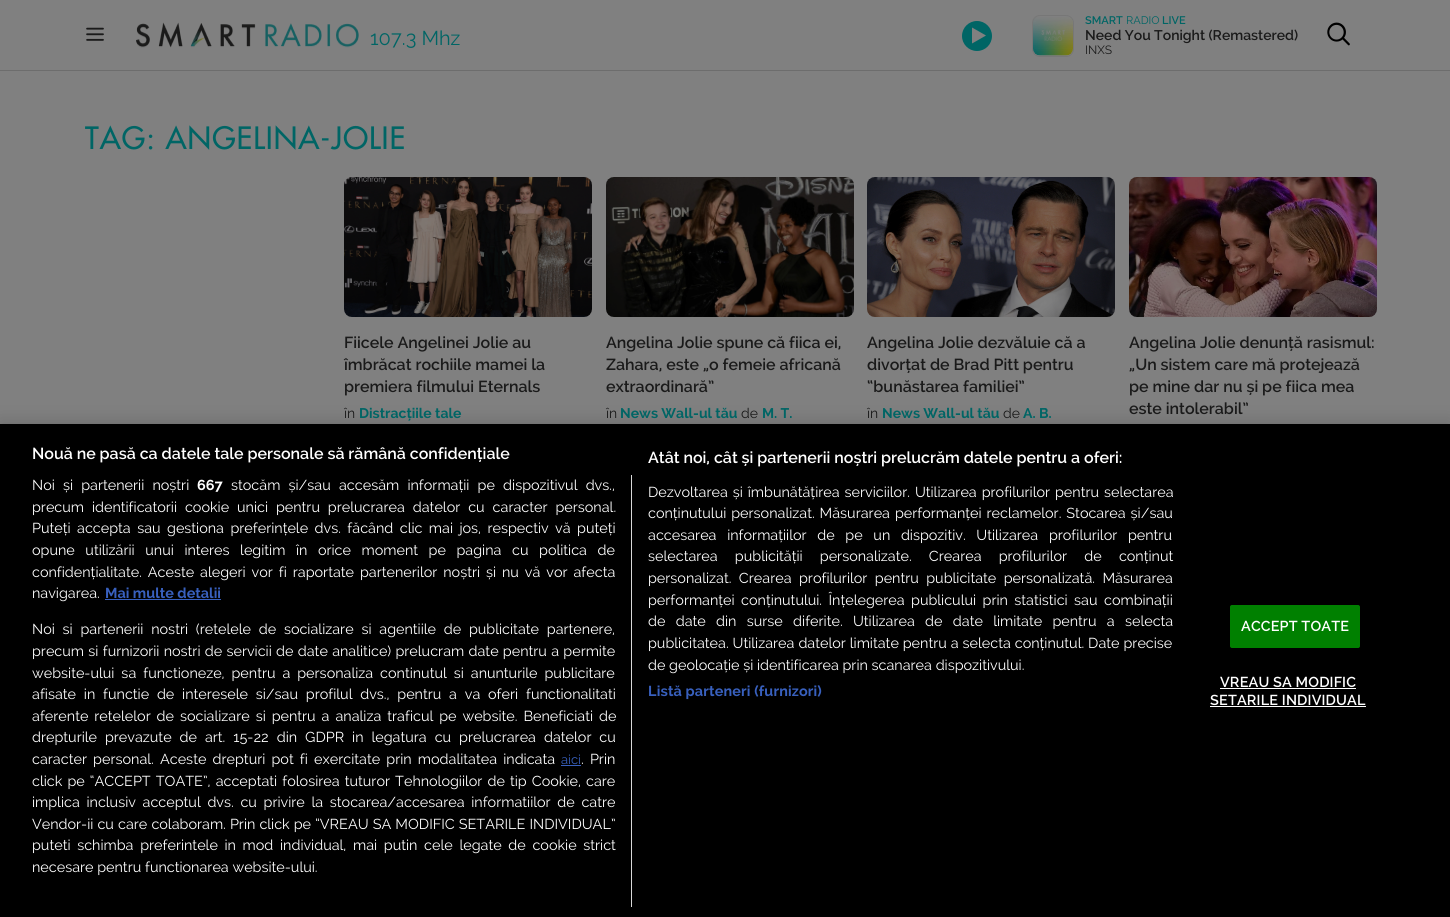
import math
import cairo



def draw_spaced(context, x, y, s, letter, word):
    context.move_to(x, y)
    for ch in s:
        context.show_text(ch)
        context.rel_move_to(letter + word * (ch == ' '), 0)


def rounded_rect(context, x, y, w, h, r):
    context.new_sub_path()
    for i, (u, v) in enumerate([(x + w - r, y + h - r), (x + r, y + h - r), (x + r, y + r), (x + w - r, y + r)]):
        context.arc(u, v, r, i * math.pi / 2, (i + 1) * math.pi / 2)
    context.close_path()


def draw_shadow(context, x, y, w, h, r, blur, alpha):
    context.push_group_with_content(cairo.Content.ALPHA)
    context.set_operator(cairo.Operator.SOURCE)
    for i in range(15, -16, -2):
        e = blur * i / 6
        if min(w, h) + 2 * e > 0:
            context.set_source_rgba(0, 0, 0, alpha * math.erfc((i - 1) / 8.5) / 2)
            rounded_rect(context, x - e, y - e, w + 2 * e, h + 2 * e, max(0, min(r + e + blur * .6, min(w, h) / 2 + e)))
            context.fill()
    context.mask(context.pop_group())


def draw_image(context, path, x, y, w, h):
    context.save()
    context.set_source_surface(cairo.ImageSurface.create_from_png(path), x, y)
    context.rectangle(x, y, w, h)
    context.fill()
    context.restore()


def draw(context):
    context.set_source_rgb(128 / 255, 128 / 255, 128 / 255)
    context.paint()
    context.set_source_rgb(109 / 255, 109 / 255, 109 / 255)
    context.rectangle(0, 70, 1450, 1)
    context.fill()
    draw_image(context, "images/1.png", 86, 27, 18, 14)
    draw_image(context, "images/2.png", 136, 22, 223, 26)
    context.set_source_rgb(0, 101 / 255, 101 / 255)
    context.arc(977, 36, 15, 0, 2 * math.pi)
    context.fill()
    context.set_source_rgb(128 / 255, 128 / 255, 128 / 255)
    context.new_path()
    context.move_to(986, 35.5)
    context.line_to(972, 27.5)
    context.line_to(972, 43.5)
    context.close_path()
    context.fill()
    rounded_rect(context, 1032.5, 15.5, 41, 41, 7.5)
    context.set_source_rgb(119 / 255, 119 / 255, 119 / 255)
    context.set_line_width(1)
    context.stroke()
    draw_image(context, "images/3.png", 1033, 17, 40, 39)
    draw_image(context, "images/4.png", 1327, 22, 23, 24)
    draw_image(context, "images/5.png", 344, 177, 248, 140)
    draw_image(context, "images/6.png", 606, 177, 248, 140)
    draw_image(context, "images/7.png", 867, 177, 248, 140)
    draw_image(context, "images/8.png", 1129, 177, 248, 140)
    context.set_source_rgb(0, 0, 0)
    draw_shadow(context, 0, 424, 1450, 493, 0, 9, 0.2)
    context.set_source_rgb(0, 0, 0)
    context.rectangle(0, 424, 1450, 493)
    context.fill()
    context.set_source_rgb(216 / 255, 216 / 255, 216 / 255)
    context.rectangle(631, 475, 1, 432)
    context.fill()
    context.set_source_rgb(56 / 255, 96 / 255, 190 / 255)
    context.rectangle(105, 599, 116, 1)
    context.fill()
    context.rectangle(561, 765, 20, 1)
    context.fill()
    context.set_source_rgb(0, 128 / 255, 0)
    rounded_rect(context, 1230.5, 605.5, 129, 42, 1.5)
    context.fill_preserve()
    context.stroke()
    context.set_source_rgb(1, 1, 1)
    context.rectangle(1220, 688, 136, 1)
    context.fill()
    context.rectangle(1210, 706, 156, 1)
    context.fill()
    context.select_font_face("Raleway")
    context.set_font_size(20)
    context.set_source_rgb(0, 101 / 255, 101 / 255)
    context.move_to(370, 45)
    context.show_text("107.3 Mhz")
    context.select_font_face("Raleway SemiBold")
    context.set_font_size(11)
    context.move_to(1085, 24)
    context.show_text("SMART")
    context.select_font_face("Raleway")
    context.move_to(1126, 24)
    context.show_text("RADIO")
    context.select_font_face("Raleway SemiBold")
    context.move_to(1162, 24)
    context.show_text("LIVE")
    context.set_font_size(14)
    context.set_source_rgb(26 / 255, 26 / 255, 26 / 255)
    context.move_to(1085, 40)
    context.show_text("Need You Tonight (Remastered)")
    context.select_font_face("Raleway")
    context.set_font_size(12)
    context.move_to(1085, 54)
    context.show_text("INXS")
    context.select_font_face("Futura Medium")
    context.set_font_size(30)
    context.set_source_rgb(0, 101 / 255, 101 / 255)
    draw_spaced(context, 85, 149, "TAG: ANGELINA-JOLIE", 1, 0)
    context.select_font_face("Raleway SemiBold")
    context.set_font_size(16)
    context.set_source_rgb(26 / 255, 26 / 255, 26 / 255)
    context.move_to(344, 348)
    context.show_text("Fiicele Angelinei Jolie au")
    context.move_to(344, 370)
    context.show_text("îmbrăcat rochiile mamei la")
    context.move_to(344, 392)
    context.show_text("premiera filmului Eternals")
    context.select_font_face("Raleway")
    context.set_font_size(14)
    context.move_to(344, 418)
    context.show_text("în")
    context.select_font_face("Raleway", cairo.FontSlant.NORMAL, cairo.FontWeight.BOLD)
    context.set_source_rgb(0, 101 / 255, 101 / 255)
    context.move_to(359, 418)
    context.show_text("Distracțiile tale")
    context.select_font_face("Raleway SemiBold")
    context.set_font_size(16)
    context.set_source_rgb(26 / 255, 26 / 255, 26 / 255)
    context.move_to(606, 348)
    context.show_text("Angelina Jolie spune că fiica ei,")
    context.move_to(606, 370)
    context.show_text("Zahara, este „o femeie africană")
    context.move_to(606, 392)
    context.show_text("extraordinară”")
    context.select_font_face("Raleway")
    context.set_font_size(14)
    context.move_to(606, 418)
    context.show_text("în")
    context.select_font_face("Raleway", cairo.FontSlant.NORMAL, cairo.FontWeight.BOLD)
    context.set_source_rgb(0, 101 / 255, 101 / 255)
    context.move_to(620, 418)
    context.show_text("News Wall-ul tău")
    context.select_font_face("Raleway")
    context.set_source_rgb(26 / 255, 26 / 255, 26 / 255)
    context.move_to(741, 418)
    context.show_text("de")
    context.select_font_face("Raleway", cairo.FontSlant.NORMAL, cairo.FontWeight.BOLD)
    context.set_source_rgb(0, 101 / 255, 101 / 255)
    context.move_to(762, 418)
    context.show_text("M. T.")
    context.select_font_face("Raleway SemiBold")
    context.set_font_size(16)
    context.set_source_rgb(26 / 255, 26 / 255, 26 / 255)
    context.move_to(867, 348)
    context.show_text("Angelina Jolie dezvăluie că a")
    context.move_to(867, 370)
    context.show_text("divorțat de Brad Pitt pentru")
    context.move_to(867, 392)
    context.show_text("“bunăstarea familiei”")
    context.select_font_face("Raleway")
    context.set_font_size(14)
    context.move_to(867, 418)
    context.show_text("în")
    context.select_font_face("Raleway", cairo.FontSlant.NORMAL, cairo.FontWeight.BOLD)
    context.set_source_rgb(0, 101 / 255, 101 / 255)
    context.move_to(882, 418)
    context.show_text("News Wall-ul tău")
    context.select_font_face("Raleway")
    context.set_source_rgb(26 / 255, 26 / 255, 26 / 255)
    context.move_to(1003, 418)
    context.show_text("de")
    context.select_font_face("Raleway", cairo.FontSlant.NORMAL, cairo.FontWeight.BOLD)
    context.set_source_rgb(0, 101 / 255, 101 / 255)
    context.move_to(1023, 418)
    context.show_text("A. B.")
    context.select_font_face("Raleway SemiBold")
    context.set_font_size(16)
    context.set_source_rgb(26 / 255, 26 / 255, 26 / 255)
    context.move_to(1129, 348)
    context.show_text("Angelina Jolie denunță rasismul:")
    context.move_to(1129, 370)
    context.show_text("„Un sistem care mă protejează")
    context.move_to(1129, 392)
    context.show_text("pe mine dar nu și pe fiica mea")
    context.move_to(1129, 414)
    context.show_text("este intolerabil”")
    context.set_source_rgb(1, 1, 1)
    context.move_to(32, 459)
    context.show_text("Nouă ne pasă ca datele tale personale să rămână confidențiale")
    context.move_to(648, 463)
    context.show_text("Atât noi, cât și partenerii noștri prelucrăm datele pentru a oferi:")
    context.select_font_face("Raleway")
    context.set_font_size(14.4)
    draw_spaced(context, 648, 497, "Dezvoltarea și îmbunătățirea serviciilor. Utilizarea profilurilor pentru selectarea", 0, 1.25)
    draw_spaced(context, 648, 518, "conținutului personalizat. Măsurarea performanței reclamelor. Stocarea și/sau", 0, 1.25)
    draw_spaced(context, 648, 540, "accesarea informațiilor de pe un dispozitiv. Utilizarea profilurilor pentru", 0, 7)
    draw_spaced(context, 648, 561, "selectarea publicității personalizate. Crearea profilurilor de conținut", 0, 13.5)
    draw_spaced(context, 648, 583, "personalizat. Crearea profilurilor pentru publicitate personalizată. Măsurarea", 0, 3.75)
    draw_spaced(context, 648, 605, "performanței conținutului. Înțelegerea publicului prin statistici sau combinații", 0, 2.75)
    draw_spaced(context, 648, 626, "de date din surse diferite. Utilizarea de date limitate pentru a selecta", 0, 6.6)
    draw_spaced(context, 648, 648, "publicitatea. Utilizarea datelor limitate pentru a selecta conținutul. Date precise", 0, 0.25)
    context.move_to(648, 670)
    context.show_text("de geolocație și identificarea prin scanarea dispozitivului.")
    context.select_font_face("Raleway", cairo.FontSlant.NORMAL, cairo.FontWeight.BOLD)
    context.set_source_rgb(56 / 255, 96 / 255, 190 / 255)
    draw_spaced(context, 648, 696, "Listă parteneri (furnizori)", 0.15, 0)
    context.select_font_face("Raleway")
    context.set_source_rgb(1, 1, 1)
    draw_spaced(context, 32, 490, "Noi și partenerii noștri", 0, 4.5)
    context.select_font_face("Raleway", cairo.FontSlant.NORMAL, cairo.FontWeight.BOLD)
    context.move_to(197, 490)
    context.show_text("667")
    context.select_font_face("Raleway")
    draw_spaced(context, 231, 490, "stocăm și/sau accesăm informații pe dispozitivul dvs.,", 0, 4.5)
    draw_spaced(context, 32, 512, "precum identificatorii cookie unici pentru prelucrarea datelor cu caracter personal.", 0, 4.25)
    draw_spaced(context, 32, 533, "Puteți accepta sau gestiona preferințele dvs. făcând clic mai jos, respectiv vă puteți", 0, 2.75)
    draw_spaced(context, 32, 555, "opune utilizării unui interes legitim în orice moment pe pagina cu politica de", 0, 6.9)
    draw_spaced(context, 32, 577, "confidențialitate. Aceste alegeri vor fi raportate partenerilor noștri și nu vă vor afecta", 0, 2.25)
    context.move_to(32, 598)
    context.show_text("navigarea.")
    context.select_font_face("Raleway", cairo.FontSlant.NORMAL, cairo.FontWeight.BOLD)
    context.set_source_rgb(56 / 255, 96 / 255, 190 / 255)
    context.move_to(105, 598)
    context.show_text("Mai multe detalii")
    context.select_font_face("Raleway")
    context.set_source_rgb(1, 1, 1)
    draw_spaced(context, 32, 634, "Noi si partenerii nostri (retelele de socializare si agentiile de publicitate partenere,", 0, 4.1)
    draw_spaced(context, 32, 656, "precum si furnizorii nostri de servicii de date analitice) prelucram date pentru a permite", 0, 0.6)
    draw_spaced(context, 32, 678, "website-ului sa functioneze, pentru a personaliza continutul si anunturile publicitare", 0, 3.25)
    draw_spaced(context, 32, 699, "afisate in functie de interesele si/sau profilul dvs., pentru a va oferi functionalitati", 0, 4.1)
    draw_spaced(context, 32, 721, "aferente retelelor de socializare si pentru a analiza traficul pe website. Beneficiati de", 0, 2.25)
    draw_spaced(context, 32, 742, "drepturile prevazute de art. 15-22 din GDPR in legatura cu prelucrarea datelor cu", 0, 4.25)
    draw_spaced(context, 32, 764, "caracter personal. Aceste drepturi pot fi exercitate prin modalitatea indicata", 0, 2.5)
    context.set_font_size(13)
    context.set_source_rgb(56 / 255, 96 / 255, 190 / 255)
    context.move_to(561, 764)
    context.show_text("aici")
    context.set_font_size(14.4)
    context.set_source_rgb(1, 1, 1)
    draw_spaced(context, 581, 764, ". Prin", 0, 2.5)
    draw_spaced(context, 32, 786, "click pe “ACCEPT TOATE”, acceptati folosirea tuturor Tehnologiilor de tip Cookie, care", 0, 1.4)
    draw_spaced(context, 32, 807, "implica inclusiv acceptul dvs. cu privire la stocarea/accesarea informatiilor de catre", 0, 3)
    draw_spaced(context, 32, 829, "Vendor-ii cu care colaboram. Prin click pe “VREAU SA MODIFIC SETARILE INDIVIDUAL”", 0, 0.4)
    draw_spaced(context, 32, 850, "puteti schimba preferintele in mod individual, mai putin cele legate de cookie strict", 0, 3)
    context.move_to(32, 872)
    context.show_text("necesare pentru functionarea website-ului.")
    context.select_font_face("Raleway SemiBold")
    draw_spaced(context, 1241, 631, "ACCEPT TOATE", 0.15, 0)
    draw_spaced(context, 1220, 687, "VREAU SA MODIFIC", 0.15, 0)
    draw_spaced(context, 1210, 705, "SETARILE INDIVIDUAL", 0.15, 0)


surface = cairo.ImageSurface(cairo.Format.RGB24, 1450, 917)
context = cairo.Context(surface)
options = cairo.FontOptions()
options.set_hint_metrics(cairo.HintMetrics.OFF)
options.set_hint_style(cairo.HintStyle.NONE)
context.set_font_options(options)
context.set_miter_limit(4)
draw(context)
surface.write_to_png("out.png")
